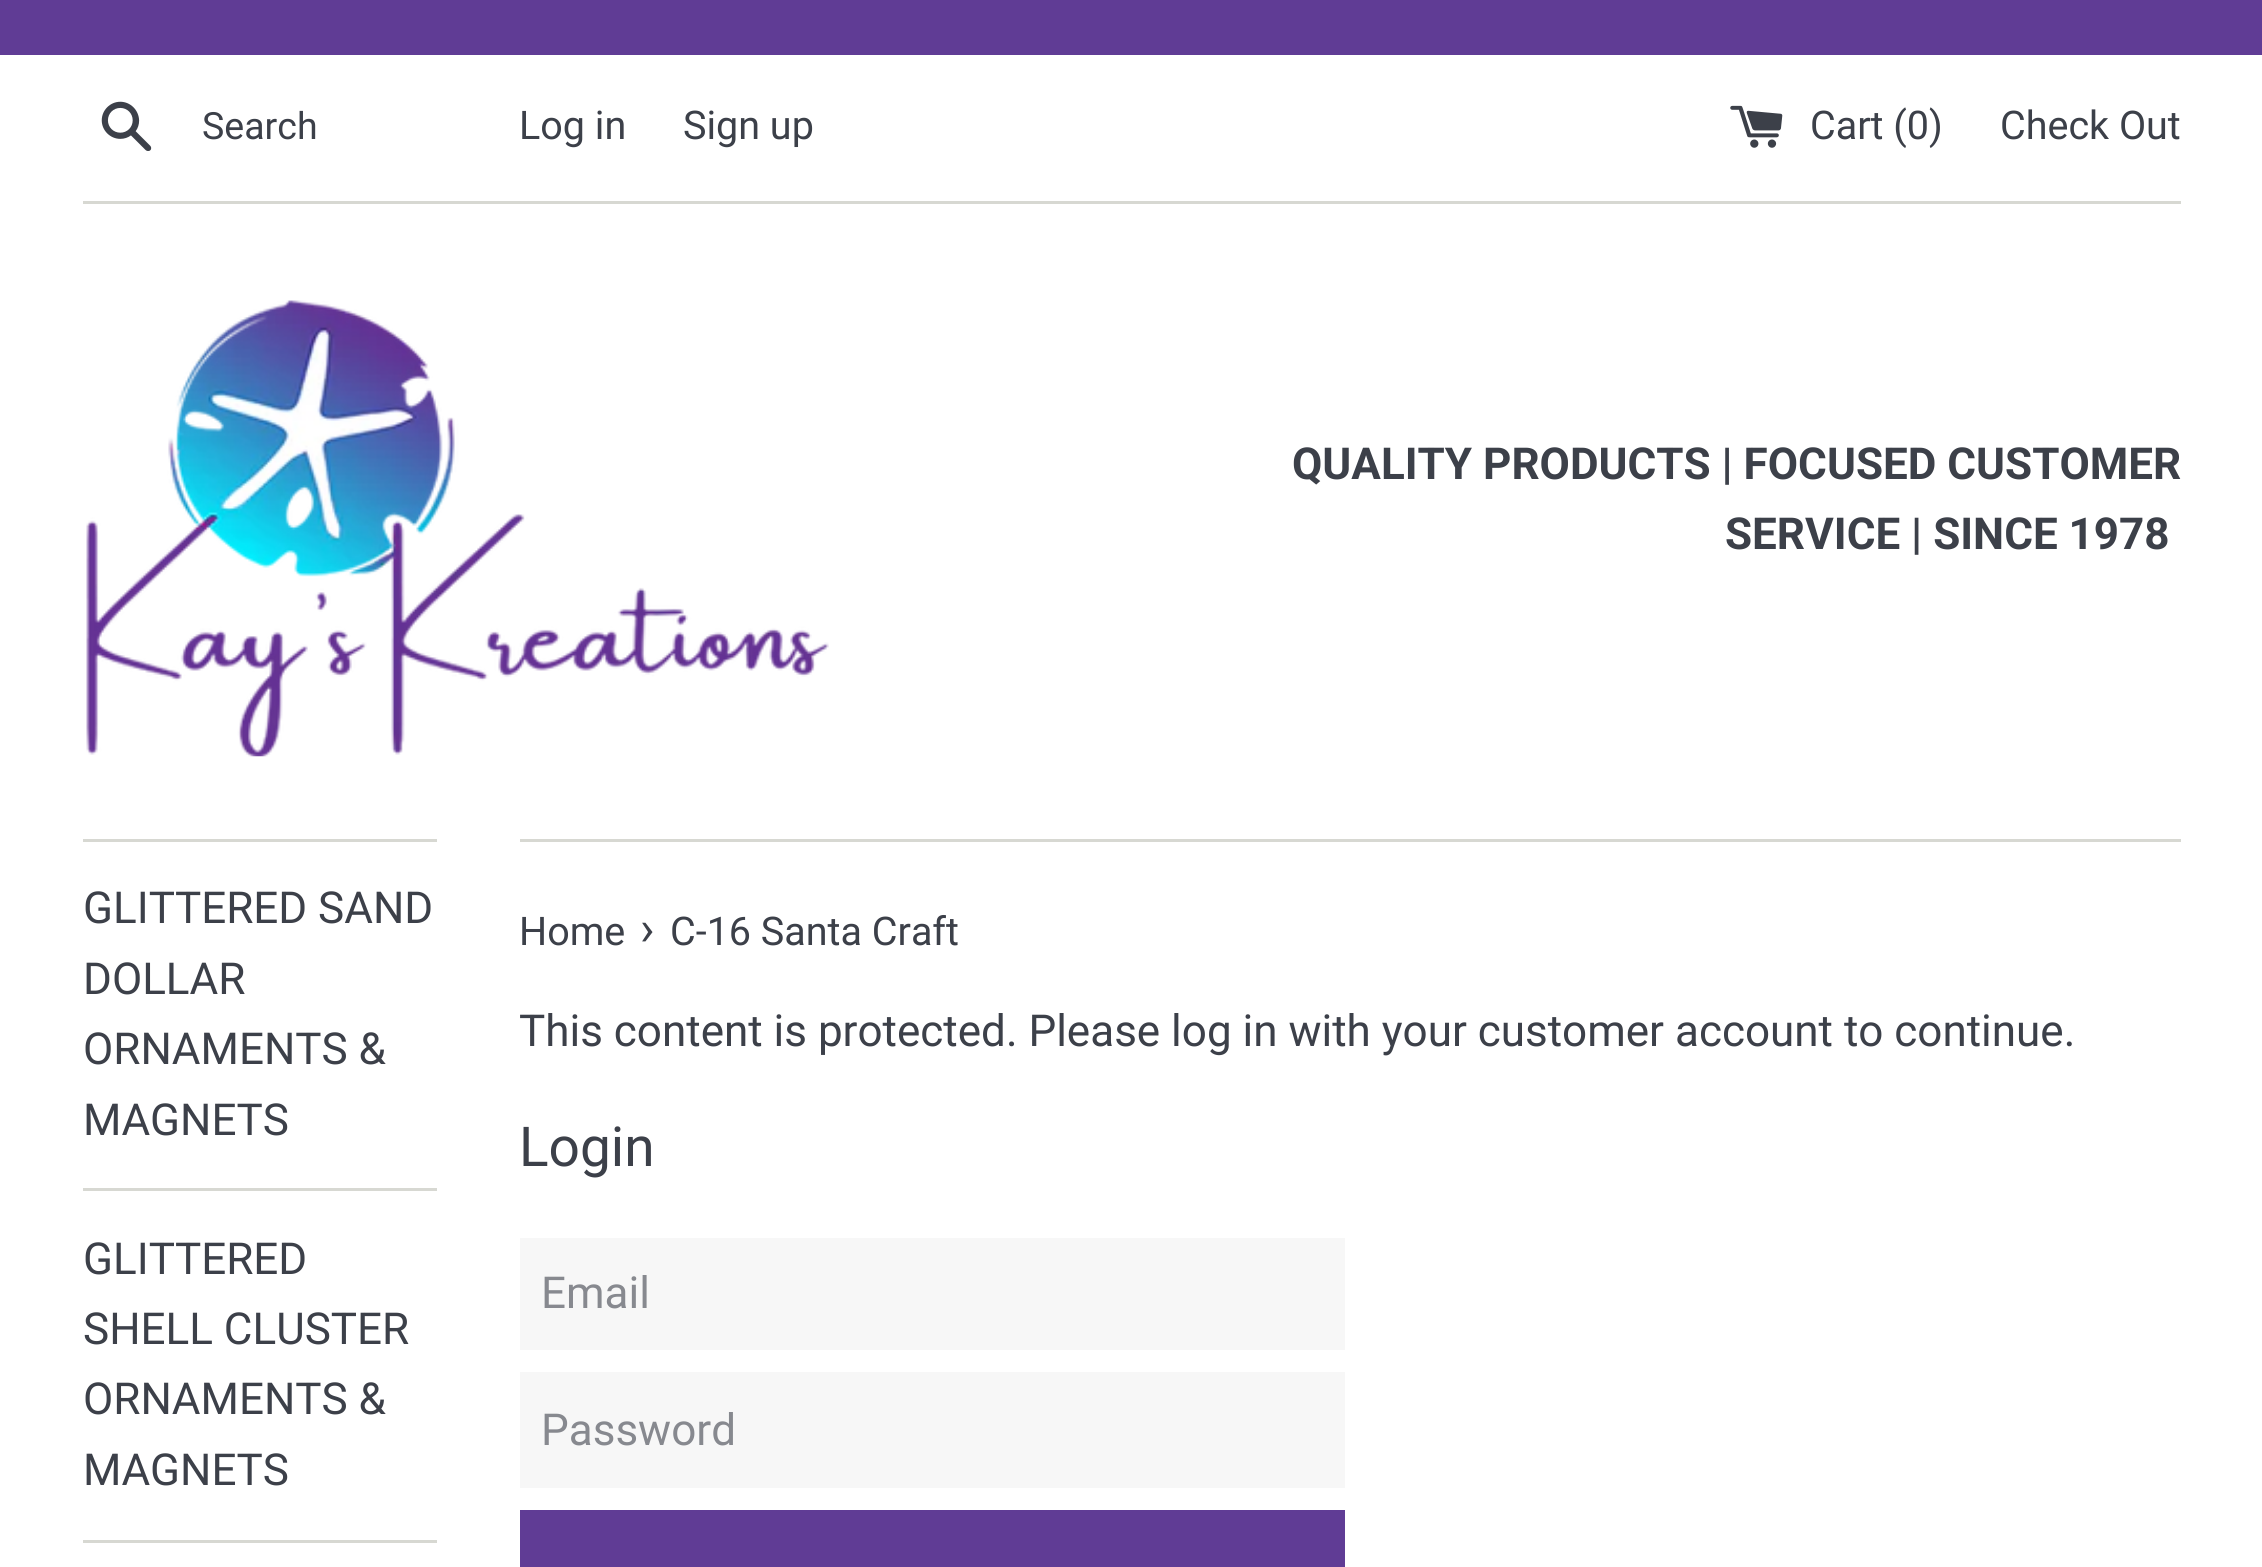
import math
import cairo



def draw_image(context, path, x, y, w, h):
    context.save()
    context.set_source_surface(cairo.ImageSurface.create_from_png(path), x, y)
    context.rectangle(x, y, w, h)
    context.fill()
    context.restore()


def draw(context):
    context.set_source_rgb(1, 1, 1)
    context.paint()
    context.set_source_rgb(96 / 255, 60 / 255, 149 / 255)
    context.rectangle(0, 0, 2262, 55)
    context.fill()
    draw_image(context, "images/1.png", 101, 101, 51, 50)
    draw_image(context, "images/2.png", 1730, 105, 53, 43)
    context.set_source_rgb(215 / 255, 216 / 255, 210 / 255)
    context.rectangle(83, 201, 2098, 3)
    context.fill()
    draw_image(context, "images/3.png", 86, 300, 743, 457)
    context.rectangle(83, 839, 354, 3)
    context.fill()
    context.rectangle(83, 1188, 354, 3)
    context.fill()
    context.rectangle(83, 1540, 354, 3)
    context.fill()
    context.rectangle(520, 839, 1661, 3)
    context.fill()
    context.set_source_rgb(247 / 255, 247 / 255, 247 / 255)
    context.rectangle(520, 1238, 825, 112)
    context.fill()
    context.rectangle(520, 1372, 825, 116)
    context.fill()
    context.set_source_rgb(96 / 255, 60 / 255, 149 / 255)
    context.rectangle(520, 1510, 825, 57)
    context.fill()
    context.select_font_face("Roboto")
    context.set_font_size(37.5)
    context.set_source_rgb(60 / 255, 64 / 255, 73 / 255)
    context.move_to(202, 139)
    context.show_text("Search")
    context.set_font_size(39.5)
    context.move_to(519, 139)
    context.show_text("Log in")
    context.move_to(683, 139)
    context.show_text("Sign up")
    context.move_to(1810, 139)
    context.show_text("Cart (0)")
    context.move_to(2000, 139)
    context.show_text("Check Out")
    context.select_font_face("Roboto", cairo.FontSlant.NORMAL, cairo.FontWeight.BOLD)
    context.set_font_size(44)
    context.move_to(1292, 479)
    context.show_text("QUALITY PRODUCTS | FOCUSED CUSTOMER")
    context.move_to(1725, 549)
    context.show_text("SERVICE | SINCE 1978")
    context.select_font_face("Roboto")
    context.move_to(83, 923)
    context.show_text("GLITTERED SAND")
    context.move_to(83, 994)
    context.show_text("DOLLAR")
    context.move_to(83, 1064)
    context.show_text("ORNAMENTS &")
    context.move_to(83, 1135)
    context.show_text("MAGNETS")
    context.move_to(83, 1274)
    context.show_text("GLITTERED")
    context.move_to(83, 1344)
    context.show_text("SHELL CLUSTER")
    context.move_to(83, 1414)
    context.show_text("ORNAMENTS &")
    context.move_to(83, 1485)
    context.show_text("MAGNETS")
    context.set_font_size(39.5)
    context.move_to(519, 945)
    context.show_text("Home")
    context.set_font_size(48)
    context.move_to(640, 945)
    context.show_text("›")
    context.set_font_size(39.5)
    context.move_to(670, 945)
    context.show_text("C-16 Santa Craft")
    context.set_font_size(44)
    context.move_to(519, 1046)
    context.show_text("This content is protected. Please log in with your customer account to continue.")
    context.set_font_size(55)
    context.move_to(519, 1166)
    context.show_text("Login")
    context.set_font_size(44)
    context.set_source_rgb(135 / 255, 137 / 255, 143 / 255)
    context.move_to(541, 1308)
    context.show_text("Email")
    context.move_to(541, 1445)
    context.show_text("Password")


surface = cairo.ImageSurface(cairo.Format.RGB24, 2262, 1567)
context = cairo.Context(surface)
options = cairo.FontOptions()
options.set_hint_metrics(cairo.HintMetrics.OFF)
options.set_hint_style(cairo.HintStyle.NONE)
context.set_font_options(options)
context.set_miter_limit(4)
draw(context)
surface.write_to_png("out.png")
